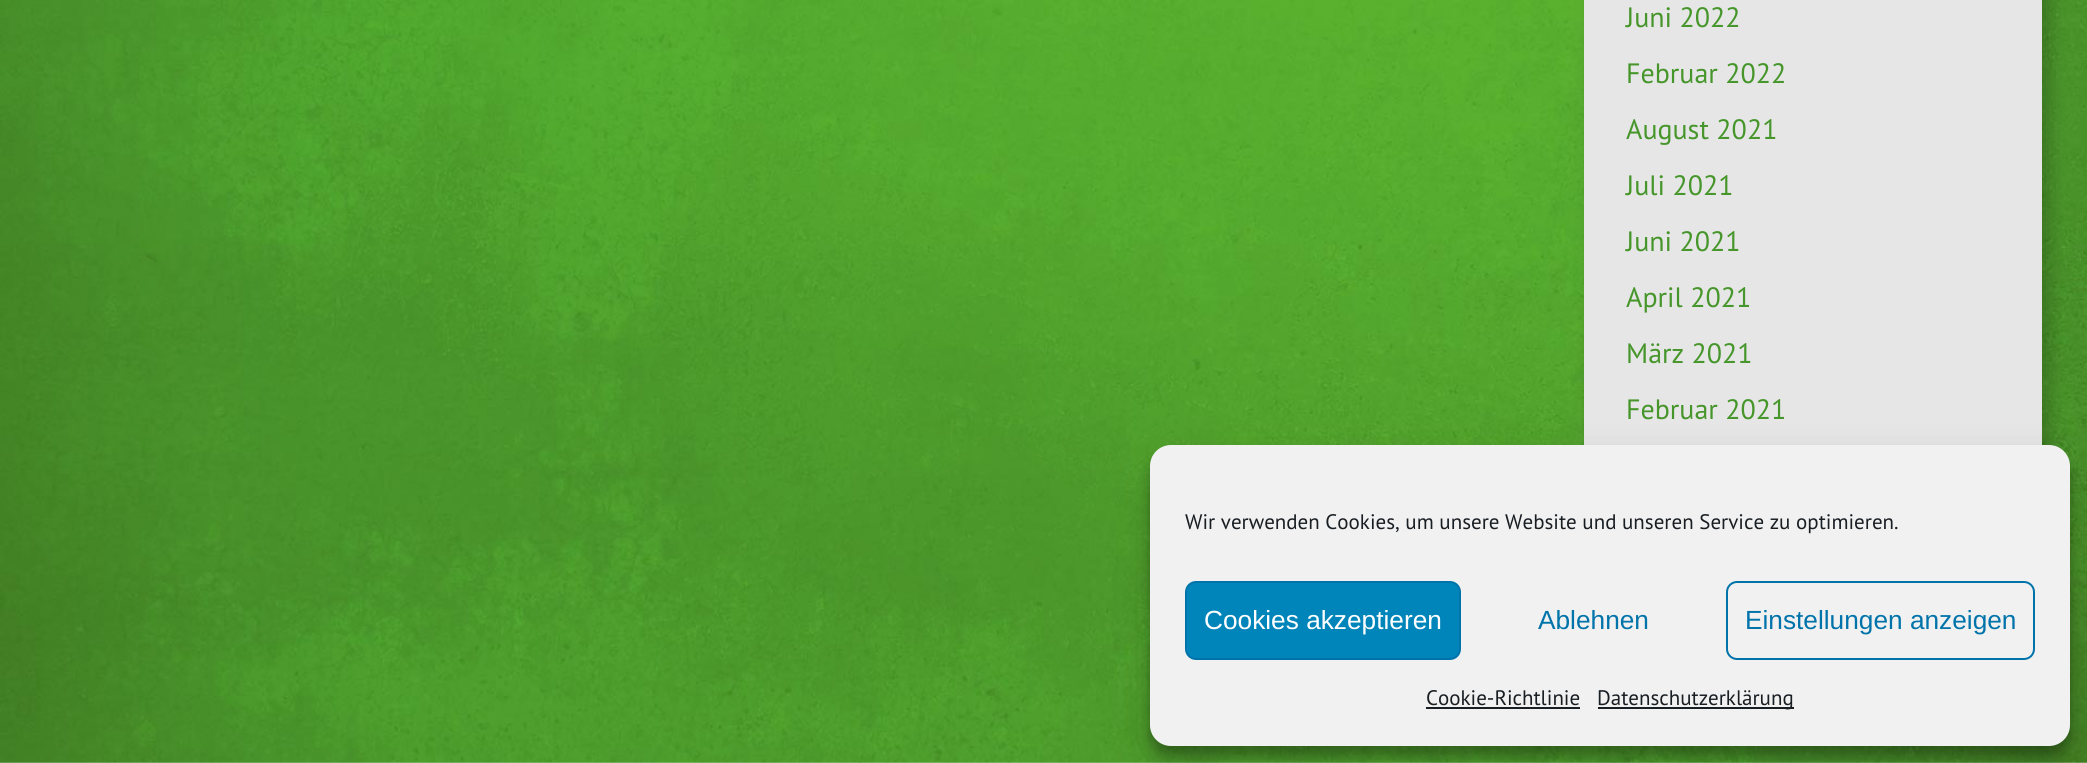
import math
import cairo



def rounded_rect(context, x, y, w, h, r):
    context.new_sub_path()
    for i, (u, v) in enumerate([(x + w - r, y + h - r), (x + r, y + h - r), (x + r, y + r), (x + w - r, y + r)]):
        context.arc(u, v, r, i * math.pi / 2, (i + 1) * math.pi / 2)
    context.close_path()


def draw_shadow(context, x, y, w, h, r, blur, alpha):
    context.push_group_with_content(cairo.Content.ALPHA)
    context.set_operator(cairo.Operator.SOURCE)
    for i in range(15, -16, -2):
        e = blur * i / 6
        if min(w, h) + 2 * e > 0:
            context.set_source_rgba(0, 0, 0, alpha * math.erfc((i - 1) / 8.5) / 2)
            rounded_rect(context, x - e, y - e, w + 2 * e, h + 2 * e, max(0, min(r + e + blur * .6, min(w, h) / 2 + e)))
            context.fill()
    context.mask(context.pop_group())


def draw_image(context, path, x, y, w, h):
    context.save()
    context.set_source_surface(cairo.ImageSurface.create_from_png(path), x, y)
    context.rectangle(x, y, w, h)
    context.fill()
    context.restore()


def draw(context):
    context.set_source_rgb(1, 1, 1)
    context.paint()
    draw_image(context, "images/1.png", 0, 0, 2087, 763)
    context.set_source_rgb(0, 0, 0)
    draw_shadow(context, 1593, -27, 458, 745, 0, 9, 0.2)
    context.set_source_rgb(230 / 255, 230 / 255, 230 / 255)
    context.rectangle(1584, 0, 458, 445)
    context.fill()
    context.set_source_rgb(0, 0, 0)
    draw_shadow(context, 1150, 455, 920, 301, 21, 5, 0.23)
    draw_shadow(context, 1150, 462, 920, 301, 21, 17.5, 0.19)
    context.set_source_rgb(241 / 255, 241 / 255, 241 / 255)
    rounded_rect(context, 1150, 445, 920, 301, 21)
    context.fill()
    context.set_source_rgb(0, 133 / 255, 186 / 255)
    rounded_rect(context, 1186, 582, 274, 77, 10)
    context.fill_preserve()
    context.set_source_rgb(0, 115 / 255, 170 / 255)
    context.stroke()
    rounded_rect(context, 1727, 582, 307, 77, 10)
    context.stroke()
    context.set_source_rgb(25 / 255, 30 / 255, 35 / 255)
    context.rectangle(1426, 707, 154, 2)
    context.fill()
    context.rectangle(1598, 707, 196, 2)
    context.fill()
    context.select_font_face("PT Sans")
    context.set_font_size(28)
    context.set_source_rgb(70 / 255, 150 / 255, 43 / 255)
    context.move_to(1626, 27)
    context.show_text("Juni 2022")
    context.move_to(1626, 83)
    context.show_text("Februar 2022")
    context.move_to(1626, 139)
    context.show_text("August 2021")
    context.move_to(1626, 195)
    context.show_text("Juli 2021")
    context.move_to(1626, 251)
    context.show_text("Juni 2021")
    context.move_to(1626, 307)
    context.show_text("April 2021")
    context.move_to(1626, 363)
    context.show_text("März 2021")
    context.move_to(1626, 419)
    context.show_text("Februar 2021")
    context.set_font_size(21)
    context.set_source_rgb(25 / 255, 30 / 255, 35 / 255)
    context.move_to(1185, 529)
    context.show_text("Wir verwenden Cookies, um unsere Website und unseren Service zu optimieren.")
    context.select_font_face("Liberation Sans")
    context.set_font_size(26.25)
    context.set_source_rgb(1, 1, 1)
    context.move_to(1204, 629)
    context.show_text("Cookies akzeptieren")
    context.set_source_rgb(0, 115 / 255, 170 / 255)
    context.move_to(1538, 629)
    context.show_text("Ablehnen")
    context.move_to(1745, 629)
    context.show_text("Einstellungen anzeigen")
    context.select_font_face("PT Sans")
    context.set_font_size(21)
    context.set_source_rgb(25 / 255, 30 / 255, 35 / 255)
    context.move_to(1426, 705)
    context.show_text("Cookie-Richtlinie")
    context.move_to(1597, 705)
    context.show_text("Datenschutzerklärung")


surface = cairo.ImageSurface(cairo.Format.RGB24, 2087, 763)
context = cairo.Context(surface)
options = cairo.FontOptions()
options.set_hint_metrics(cairo.HintMetrics.OFF)
options.set_hint_style(cairo.HintStyle.NONE)
context.set_font_options(options)
context.set_miter_limit(4)
draw(context)
surface.write_to_png("out.png")
